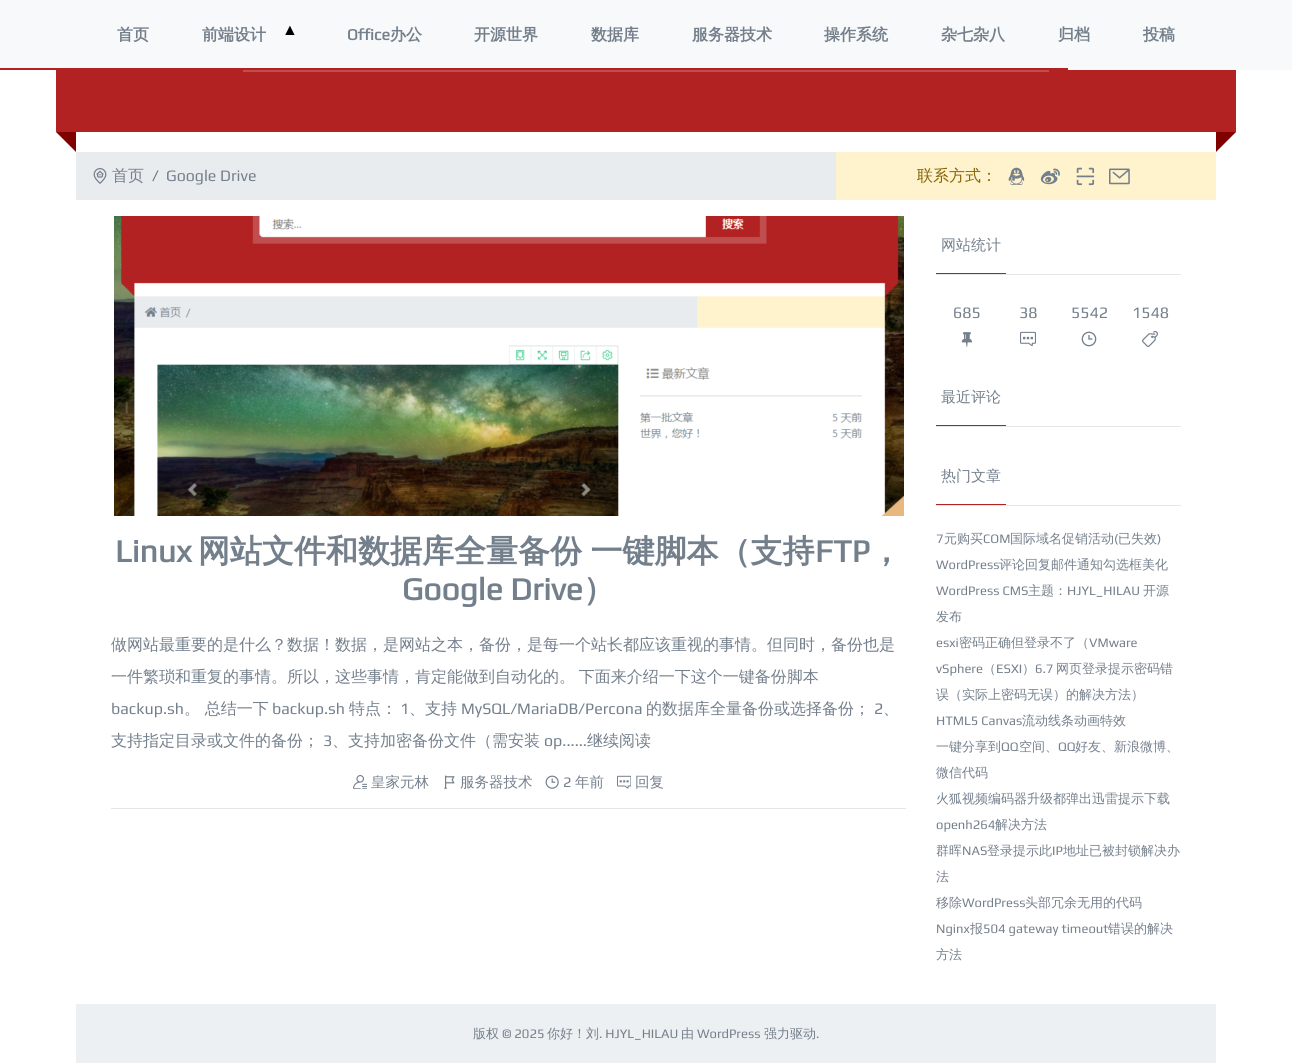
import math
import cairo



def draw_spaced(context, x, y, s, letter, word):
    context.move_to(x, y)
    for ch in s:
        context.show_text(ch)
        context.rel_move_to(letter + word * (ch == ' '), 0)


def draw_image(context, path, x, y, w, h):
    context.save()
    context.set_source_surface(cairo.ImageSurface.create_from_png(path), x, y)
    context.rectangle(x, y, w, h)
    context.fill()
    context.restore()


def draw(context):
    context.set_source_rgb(1, 1, 1)
    context.paint()
    context.set_source_rgb(178 / 255, 34 / 255, 34 / 255)
    context.rectangle(56, 70, 1180, 62)
    context.fill()
    context.rectangle(248, 17, 796, 50)
    context.set_source_rgb(193 / 255, 78 / 255, 78 / 255)
    context.set_line_width(10)
    context.stroke()
    context.set_source_rgb(128 / 255, 0, 0)
    context.new_path()
    context.move_to(56, 132)
    context.line_to(76, 132)
    context.line_to(76, 152)
    context.close_path()
    context.fill()
    context.new_path()
    context.move_to(1216, 132)
    context.line_to(1236, 132)
    context.line_to(1216, 152)
    context.close_path()
    context.fill()
    context.set_source_rgb(248 / 255, 249 / 255, 250 / 255)
    context.rectangle(0, 0, 1292, 70)
    context.fill()
    context.set_source_rgb(178 / 255, 34 / 255, 34 / 255)
    context.rectangle(0, 68, 1068, 2)
    context.fill()
    context.set_source_rgb(233 / 255, 236 / 255, 239 / 255)
    context.rectangle(76, 152, 760, 48)
    context.fill()
    draw_image(context, "images/1.png", 93, 168, 14, 16)
    context.set_source_rgb(1, 243 / 255, 205 / 255)
    context.rectangle(836, 152, 380, 48)
    context.fill()
    draw_image(context, "images/2.png", 1008, 167, 17, 19)
    draw_image(context, "images/3.png", 1040, 168, 20, 17)
    draw_image(context, "images/4.png", 1076, 167, 19, 19)
    draw_image(context, "images/5.png", 1109, 168, 21, 17)
    draw_image(context, "images/6.png", 114, 216, 790, 300)
    context.set_source_rgb(230 / 255, 230 / 255, 230 / 255)
    context.rectangle(111, 808, 795, 1)
    context.fill()
    draw_image(context, "images/7.png", 353, 775, 14, 14)
    draw_image(context, "images/8.png", 444, 775, 11, 14)
    draw_image(context, "images/9.png", 545, 775, 14, 14)
    draw_image(context, "images/10.png", 617, 775, 14, 14)
    context.rectangle(936, 274, 245, 1)
    context.fill()
    context.set_source_rgb(178 / 255, 34 / 255, 34 / 255)
    context.rectangle(936, 273, 70, 1)
    context.fill()
    draw_image(context, "images/11.png", 961, 332, 11, 15)
    draw_image(context, "images/12.png", 1020, 331, 16, 15)
    draw_image(context, "images/13.png", 1081, 331, 16, 16)
    draw_image(context, "images/14.png", 1142, 331, 16, 16)
    context.set_source_rgb(230 / 255, 230 / 255, 230 / 255)
    context.rectangle(936, 426, 245, 1)
    context.fill()
    context.set_source_rgb(178 / 255, 34 / 255, 34 / 255)
    context.rectangle(936, 425, 70, 1)
    context.fill()
    context.set_source_rgb(230 / 255, 230 / 255, 230 / 255)
    context.rectangle(936, 505, 245, 1)
    context.fill()
    context.set_source_rgb(178 / 255, 34 / 255, 34 / 255)
    context.rectangle(936, 504, 70, 1)
    context.fill()
    context.set_source_rgb(237 / 255, 240 / 255, 242 / 255)
    context.rectangle(76, 1004, 1140, 59)
    context.fill()
    context.select_font_face("WenQuanYi Zen Hei", cairo.FontSlant.NORMAL, cairo.FontWeight.BOLD)
    context.set_font_size(16)
    context.set_source_rgb(116 / 255, 127 / 255, 140 / 255)
    context.move_to(117, 40)
    context.show_text("首页")
    context.move_to(202, 40)
    context.show_text("前端设计")
    context.select_font_face("Liberation Sans", cairo.FontSlant.ITALIC)
    context.set_source_rgb(0, 0, 0)
    context.move_to(282, 35)
    context.show_text("▲")
    context.select_font_face("Play", cairo.FontSlant.NORMAL, cairo.FontWeight.BOLD)
    context.set_source_rgb(116 / 255, 127 / 255, 140 / 255)
    context.move_to(347, 40)
    context.show_text("Office")
    context.select_font_face("WenQuanYi Zen Hei", cairo.FontSlant.NORMAL, cairo.FontWeight.BOLD)
    context.move_to(390, 40)
    context.show_text("办公")
    context.move_to(474, 40)
    context.show_text("开源世界")
    context.move_to(591, 40)
    context.show_text("数据库")
    context.move_to(692, 40)
    context.show_text("服务器技术")
    context.move_to(824, 40)
    context.show_text("操作系统")
    context.move_to(941, 40)
    context.show_text("杂七杂八")
    context.move_to(1058, 40)
    context.show_text("归档")
    context.move_to(1143, 40)
    context.show_text("投稿")
    context.select_font_face("WenQuanYi Zen Hei Medium")
    context.move_to(112, 181)
    context.show_text("首页")
    context.select_font_face("Play")
    context.set_source_rgb(108 / 255, 117 / 255, 125 / 255)
    context.move_to(152, 181)
    context.show_text("/")
    context.set_source_rgb(116 / 255, 127 / 255, 140 / 255)
    context.move_to(166, 181)
    context.show_text("Google Drive")
    context.select_font_face("WenQuanYi Zen Hei Medium")
    context.set_source_rgb(133 / 255, 100 / 255, 4 / 255)
    context.move_to(917, 181)
    context.show_text("联系方式：")
    context.select_font_face("Play", cairo.FontSlant.NORMAL, cairo.FontWeight.BOLD)
    context.set_font_size(32)
    context.set_source_rgb(116 / 255, 127 / 255, 140 / 255)
    context.move_to(115, 562)
    context.show_text("Linux")
    context.select_font_face("WenQuanYi Zen Hei", cairo.FontSlant.NORMAL, cairo.FontWeight.BOLD)
    draw_spaced(context, 198, 562, "网站文件和数据库全量备份 一键脚本（支持", 0, -1)
    context.select_font_face("Play", cairo.FontSlant.NORMAL, cairo.FontWeight.BOLD)
    context.move_to(815, 562)
    context.show_text("FTP")
    context.select_font_face("WenQuanYi Zen Hei", cairo.FontSlant.NORMAL, cairo.FontWeight.BOLD)
    context.move_to(870, 562)
    context.show_text("，")
    context.select_font_face("Play", cairo.FontSlant.NORMAL, cairo.FontWeight.BOLD)
    context.move_to(402, 600)
    context.show_text("Google Drive")
    context.select_font_face("WenQuanYi Zen Hei", cairo.FontSlant.NORMAL, cairo.FontWeight.BOLD)
    context.move_to(583, 600)
    context.show_text("）")
    context.select_font_face("WenQuanYi Zen Hei Medium")
    context.set_font_size(16)
    context.move_to(111, 650)
    context.show_text("做网站最重要的是什么？数据！数据，是网站之本，备份，是每一个站长都应该重视的事情。但同时，备份也是")
    draw_spaced(context, 111, 682, "一件繁琐和重复的事情。所以，这些事情，肯定能做到自动化的。 下面来介绍一下这个一键备份脚本", 0, -1)
    context.select_font_face("Play")
    context.move_to(111, 714)
    context.show_text("backup.sh")
    context.select_font_face("WenQuanYi Zen Hei Medium")
    context.move_to(184, 714)
    context.show_text("。 总结一下")
    context.select_font_face("Play")
    context.move_to(272, 714)
    context.show_text("backup.sh")
    context.select_font_face("WenQuanYi Zen Hei Medium")
    context.move_to(349, 714)
    context.show_text("特点：")
    context.select_font_face("Play")
    context.move_to(400, 714)
    context.show_text("1")
    context.select_font_face("WenQuanYi Zen Hei Medium")
    context.move_to(409, 714)
    context.show_text("、支持")
    context.select_font_face("Play")
    context.move_to(461, 714)
    context.show_text("MySQL/MariaDB/Percona")
    context.select_font_face("WenQuanYi Zen Hei Medium")
    context.move_to(646, 714)
    context.show_text("的数据库全量备份或选择备份；")
    context.select_font_face("Play")
    context.move_to(874, 714)
    context.show_text("2")
    context.select_font_face("WenQuanYi Zen Hei Medium")
    context.move_to(883, 714)
    context.show_text("、")
    context.move_to(111, 746)
    context.show_text("支持指定目录或文件的备份；")
    context.select_font_face("Play")
    context.move_to(323, 746)
    context.show_text("3")
    context.select_font_face("WenQuanYi Zen Hei Medium")
    context.move_to(332, 746)
    context.show_text("、支持加密备份文件（需安装")
    context.select_font_face("Play")
    context.move_to(544, 746)
    context.show_text("op......")
    context.select_font_face("WenQuanYi Zen Hei Medium")
    context.move_to(587, 746)
    context.show_text("继续阅读")
    context.set_font_size(14.5)
    context.move_to(371, 787)
    context.show_text("皇家元林")
    context.move_to(460, 787)
    context.show_text("服务器技术")
    context.select_font_face("Play")
    context.move_to(563, 787)
    context.show_text("2")
    context.select_font_face("WenQuanYi Zen Hei Medium")
    context.move_to(575, 787)
    context.show_text("年前")
    context.move_to(635, 787)
    context.show_text("回复")
    context.set_font_size(15)
    context.move_to(941, 250)
    context.show_text("网站统计")
    context.select_font_face("Play")
    context.set_font_size(16)
    context.move_to(953, 318)
    context.show_text("685")
    context.move_to(1019, 318)
    context.show_text("38")
    context.move_to(1071, 318)
    context.show_text("5542")
    context.move_to(1132, 318)
    context.show_text("1548")
    context.select_font_face("WenQuanYi Zen Hei Medium")
    context.set_font_size(15)
    context.move_to(941, 402)
    context.show_text("最近评论")
    context.move_to(941, 481)
    context.show_text("热门文章")
    context.select_font_face("Play")
    context.set_font_size(13)
    context.move_to(936, 543)
    context.show_text("7")
    context.select_font_face("WenQuanYi Zen Hei Medium")
    context.move_to(944, 543)
    context.show_text("元购买")
    context.select_font_face("Play")
    context.move_to(983, 543)
    context.show_text("COM")
    context.select_font_face("WenQuanYi Zen Hei Medium")
    context.move_to(1010, 543)
    context.show_text("国际域名促销活动")
    context.select_font_face("Play")
    context.move_to(1114, 543)
    context.show_text("(")
    context.select_font_face("WenQuanYi Zen Hei Medium")
    context.move_to(1118, 543)
    context.show_text("已失效")
    context.select_font_face("Play")
    context.move_to(1157, 543)
    context.show_text(")")
    context.move_to(936, 569)
    context.show_text("WordPress")
    context.select_font_face("WenQuanYi Zen Hei Medium")
    context.move_to(999, 569)
    context.show_text("评论回复邮件通知勾选框美化")
    context.select_font_face("Play")
    context.move_to(936, 595)
    context.show_text("WordPress CMS")
    context.select_font_face("WenQuanYi Zen Hei Medium")
    context.move_to(1028, 595)
    context.show_text("主题：")
    context.select_font_face("Play")
    context.move_to(1067, 595)
    context.show_text("HJYL_HILAU")
    context.select_font_face("WenQuanYi Zen Hei Medium")
    context.move_to(1143, 595)
    context.show_text("开源")
    context.move_to(936, 621)
    context.show_text("发布")
    context.select_font_face("Play")
    context.move_to(936, 647)
    context.show_text("esxi")
    context.select_font_face("WenQuanYi Zen Hei Medium")
    context.move_to(959, 647)
    context.show_text("密码正确但登录不了（")
    context.select_font_face("Play")
    context.move_to(1089, 647)
    context.show_text("VMware")
    context.move_to(936, 673)
    context.show_text("vSphere")
    context.select_font_face("WenQuanYi Zen Hei Medium")
    context.move_to(983, 673)
    context.show_text("（")
    context.select_font_face("Play")
    context.move_to(996, 673)
    context.show_text("ESXI")
    context.select_font_face("WenQuanYi Zen Hei Medium")
    context.move_to(1022, 673)
    context.show_text("）")
    context.select_font_face("Play")
    context.move_to(1035, 673)
    context.show_text("6.7")
    context.select_font_face("WenQuanYi Zen Hei Medium")
    context.move_to(1056, 673)
    context.show_text("网页登录提示密码错")
    context.move_to(936, 699)
    context.show_text("误（实际上密码无误）的解决方法）")
    context.select_font_face("Play")
    context.move_to(936, 725)
    context.show_text("HTML5 Canvas")
    context.select_font_face("WenQuanYi Zen Hei Medium")
    context.move_to(1022, 725)
    context.show_text("流动线条动画特效")
    context.move_to(936, 751)
    context.show_text("一键分享到")
    context.select_font_face("Play")
    context.move_to(1001, 751)
    context.show_text("QQ")
    context.select_font_face("WenQuanYi Zen Hei Medium")
    context.move_to(1019, 751)
    context.show_text("空间、")
    context.select_font_face("Play")
    context.move_to(1058, 751)
    context.show_text("QQ")
    context.select_font_face("WenQuanYi Zen Hei Medium")
    context.move_to(1075, 751)
    context.show_text("好友、新浪微博、")
    context.move_to(936, 777)
    context.show_text("微信代码")
    context.move_to(936, 803)
    context.show_text("火狐视频编码器升级都弹出迅雷提示下载")
    context.select_font_face("Play")
    context.move_to(936, 829)
    context.show_text("openh264")
    context.select_font_face("WenQuanYi Zen Hei Medium")
    context.move_to(995, 829)
    context.show_text("解决方法")
    context.move_to(936, 855)
    context.show_text("群晖")
    context.select_font_face("Play")
    context.move_to(962, 855)
    context.show_text("NAS")
    context.select_font_face("WenQuanYi Zen Hei Medium")
    context.move_to(987, 855)
    context.show_text("登录提示此")
    context.select_font_face("Play")
    context.move_to(1052, 855)
    context.show_text("IP")
    context.select_font_face("WenQuanYi Zen Hei Medium")
    context.move_to(1063, 855)
    context.show_text("地址已被封锁解决办")
    context.move_to(936, 881)
    context.show_text("法")
    context.move_to(936, 907)
    context.show_text("移除")
    context.select_font_face("Play")
    context.move_to(962, 907)
    context.show_text("WordPress")
    context.select_font_face("WenQuanYi Zen Hei Medium")
    context.move_to(1025, 907)
    context.show_text("头部冗余无用的代码")
    context.select_font_face("Play")
    context.move_to(936, 933)
    context.show_text("Nginx")
    context.select_font_face("WenQuanYi Zen Hei Medium")
    context.move_to(970, 933)
    context.show_text("报")
    context.select_font_face("Play")
    context.move_to(983, 933)
    context.show_text("504 gateway timeout")
    context.select_font_face("WenQuanYi Zen Hei Medium")
    context.move_to(1108, 933)
    context.show_text("错误的解决")
    context.move_to(936, 959)
    context.show_text("方法")
    context.move_to(473, 1038)
    context.show_text("版权")
    context.select_font_face("Play")
    context.move_to(502, 1038)
    context.show_text("© 2025")
    context.select_font_face("WenQuanYi Zen Hei Medium")
    context.move_to(547, 1038)
    context.show_text("你好！刘")
    context.select_font_face("Play")
    context.move_to(599, 1038)
    context.show_text(". HJYL_HILAU")
    context.select_font_face("WenQuanYi Zen Hei Medium")
    context.move_to(681, 1038)
    context.show_text("由")
    context.select_font_face("Play")
    context.move_to(697, 1038)
    context.show_text("WordPress")
    context.select_font_face("WenQuanYi Zen Hei Medium")
    context.move_to(764, 1038)
    context.show_text("强力驱动")
    context.select_font_face("Play")
    context.move_to(816, 1038)
    context.show_text(".")


surface = cairo.ImageSurface(cairo.Format.RGB24, 1292, 1063)
context = cairo.Context(surface)
options = cairo.FontOptions()
options.set_hint_metrics(cairo.HintMetrics.OFF)
options.set_hint_style(cairo.HintStyle.NONE)
context.set_font_options(options)
context.set_miter_limit(4)
draw(context)
surface.write_to_png("out.png")
